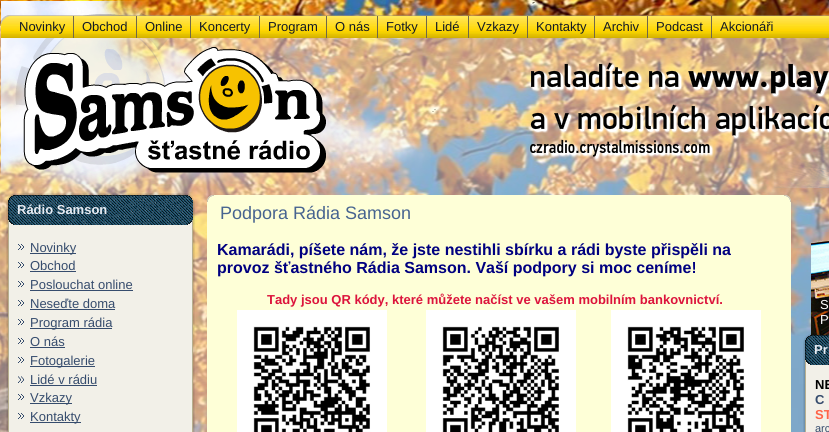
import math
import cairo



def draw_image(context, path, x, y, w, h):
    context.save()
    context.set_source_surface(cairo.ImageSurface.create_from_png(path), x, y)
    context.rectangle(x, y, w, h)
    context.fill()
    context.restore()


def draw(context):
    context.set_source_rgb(1, 1, 1)
    context.paint()
    draw_image(context, "images/1.png", 0, 0, 829, 432)
    draw_image(context, "images/2.png", 1, 1, 430, 204)
    draw_image(context, "images/3.png", 0, 15, 11, 11)
    context.set_source_rgba(165 / 255, 155 / 255, 114 / 255, 0.49)
    context.rectangle(11, 15, 818, 2)
    context.fill()
    context.set_source_rgba(1, 1, 1, 0.49)
    context.rectangle(0, 26, 11, 406)
    context.fill()
    draw_image(context, "images/4.png", 1, 16, 828, 22)
    context.set_source_rgb(112 / 255, 104 / 255, 72 / 255)
    context.rectangle(73, 16, 1, 22)
    context.fill()
    context.rectangle(136, 16, 1, 22)
    context.fill()
    context.rectangle(190, 16, 1, 22)
    context.fill()
    context.rectangle(259, 16, 1, 22)
    context.fill()
    context.rectangle(326, 16, 1, 22)
    context.fill()
    context.rectangle(377, 16, 1, 22)
    context.fill()
    context.rectangle(426, 16, 1, 22)
    context.fill()
    context.rectangle(468, 16, 1, 22)
    context.fill()
    context.rectangle(527, 16, 1, 22)
    context.fill()
    context.rectangle(594, 16, 1, 22)
    context.fill()
    context.rectangle(647, 16, 1, 22)
    context.fill()
    context.rectangle(711, 16, 1, 22)
    context.fill()
    context.set_source_rgba(1, 1, 1, 0.49)
    context.rectangle(11, 38, 818, 394)
    context.fill()
    draw_image(context, "images/5.png", 23, 47, 806, 141)
    draw_image(context, "images/6.png", 6, 193, 17, 17)
    draw_image(context, "images/7.png", 23, 193, 155, 2)
    draw_image(context, "images/8.png", 178, 193, 17, 17)
    draw_image(context, "images/9.png", 6, 210, 17, 222)
    draw_image(context, "images/14.png", 178, 210, 17, 222)
    draw_image(context, "images/10.png", 8, 195, 176, 30)
    draw_image(context, "images/11.png", 184, 195, 9, 30)
    context.set_source_rgb(242 / 255, 240 / 255, 232 / 255)
    context.rectangle(23, 225, 155, 207)
    context.fill()
    draw_image(context, "images/12.png", 18, 244, 6, 6)
    context.set_source_rgb(54 / 255, 76 / 255, 109 / 255)
    context.rectangle(30, 253, 46, 1)
    context.fill()
    draw_image(context, "images/12.png", 18, 262, 6, 6)
    context.rectangle(30, 271, 46, 1)
    context.fill()
    draw_image(context, "images/12.png", 18, 281, 6, 6)
    context.rectangle(30, 290, 103, 1)
    context.fill()
    draw_image(context, "images/12.png", 18, 300, 6, 6)
    context.rectangle(30, 309, 85, 1)
    context.fill()
    draw_image(context, "images/12.png", 18, 319, 6, 6)
    context.rectangle(30, 328, 82, 1)
    context.fill()
    draw_image(context, "images/12.png", 18, 338, 6, 6)
    context.rectangle(30, 347, 35, 1)
    context.fill()
    draw_image(context, "images/12.png", 18, 357, 6, 6)
    context.rectangle(30, 366, 65, 1)
    context.fill()
    draw_image(context, "images/13.png", 18, 376, 6, 7)
    context.rectangle(30, 385, 67, 1)
    context.fill()
    draw_image(context, "images/12.png", 18, 394, 6, 6)
    context.rectangle(30, 403, 42, 1)
    context.fill()
    draw_image(context, "images/12.png", 18, 413, 6, 6)
    context.rectangle(30, 422, 51, 1)
    context.fill()
    draw_image(context, "images/15.png", 207, 195, 7, 7)
    context.set_source_rgb(254 / 255, 1, 215 / 255)
    context.rectangle(214, 195, 570, 7)
    context.fill()
    draw_image(context, "images/16.png", 784, 195, 7, 7)
    context.rectangle(207, 202, 7, 230)
    context.fill()
    context.rectangle(214, 202, 577, 230)
    context.fill()
    draw_image(context, "images/17.png", 237, 310, 150, 122)
    draw_image(context, "images/18.png", 426, 310, 150, 122)
    draw_image(context, "images/19.png", 611, 310, 150, 122)
    draw_image(context, "images/20.png", 811, 240, 18, 95)
    draw_image(context, "images/21.png", 803, 333, 17, 17)
    draw_image(context, "images/22.png", 820, 333, 9, 2)
    draw_image(context, "images/23.png", 803, 350, 17, 79)
    draw_image(context, "images/24.png", 805, 335, 24, 30)
    draw_image(context, "images/25.png", 803, 429, 17, 3)
    context.set_source_rgb(242 / 255, 240 / 255, 232 / 255)
    context.rectangle(820, 365, 9, 67)
    context.fill()
    context.select_font_face("Liberation Sans")
    context.set_font_size(13)
    context.set_source_rgb(19 / 255, 26 / 255, 38 / 255)
    context.move_to(19, 31)
    context.show_text("Novinky")
    context.move_to(82, 31)
    context.show_text("Obchod")
    context.move_to(145, 31)
    context.show_text("Online")
    context.move_to(199, 31)
    context.show_text("Koncerty")
    context.move_to(268, 31)
    context.show_text("Program")
    context.move_to(335, 31)
    context.show_text("O nás")
    context.move_to(386, 31)
    context.show_text("Fotky")
    context.move_to(435, 31)
    context.show_text("Lidé")
    context.move_to(477, 31)
    context.show_text("Vzkazy")
    context.move_to(536, 31)
    context.show_text("Kontakty")
    context.move_to(603, 31)
    context.show_text("Archiv")
    context.move_to(656, 31)
    context.show_text("Podcast")
    context.move_to(720, 31)
    context.show_text("Akcionáři")
    context.select_font_face("Liberation Sans", cairo.FontSlant.NORMAL, cairo.FontWeight.BOLD)
    context.set_source_rgb(231 / 255, 236 / 255, 243 / 255)
    context.move_to(17, 214)
    context.show_text("Rádio Samson")
    context.select_font_face("Liberation Sans")
    context.set_source_rgb(54 / 255, 76 / 255, 109 / 255)
    context.move_to(30, 252)
    context.show_text("Novinky")
    context.move_to(30, 270)
    context.show_text("Obchod")
    context.move_to(30, 289)
    context.show_text("Poslouchat online")
    context.move_to(30, 308)
    context.show_text("Neseďte doma")
    context.move_to(30, 327)
    context.show_text("Program rádia")
    context.move_to(30, 346)
    context.show_text("O nás")
    context.move_to(30, 365)
    context.show_text("Fotogalerie")
    context.move_to(30, 384)
    context.show_text("Lidé v rádiu")
    context.move_to(30, 402)
    context.show_text("Vzkazy")
    context.move_to(30, 421)
    context.show_text("Kontakty")
    context.set_font_size(18)
    context.set_source_rgb(71 / 255, 100 / 255, 144 / 255)
    context.move_to(220, 219)
    context.show_text("Podpora Rádia Samson")
    context.select_font_face("Liberation Sans", cairo.FontSlant.NORMAL, cairo.FontWeight.BOLD)
    context.set_font_size(16)
    context.set_source_rgb(0, 0, 128 / 255)
    context.move_to(217, 255)
    context.show_text("Kamarádi, píšete nám, že jste nestihli sbírku a rádi byste přispěli na")
    context.move_to(217, 273)
    context.show_text("provoz šťastného Rádia Samson. Vaší podpory si moc ceníme!")
    context.set_font_size(13)
    context.set_source_rgb(220 / 255, 20 / 255, 60 / 255)
    context.move_to(267, 304)
    context.show_text("Tady jsou QR kódy, které můžete načíst ve vašem mobilním bankovnictví.")
    context.select_font_face("Liberation Sans")
    context.set_source_rgb(1, 1, 1)
    context.move_to(820, 309)
    context.show_text("S")
    context.move_to(820, 324)
    context.show_text("P")
    context.select_font_face("Liberation Sans", cairo.FontSlant.NORMAL, cairo.FontWeight.BOLD)
    context.set_source_rgb(231 / 255, 236 / 255, 243 / 255)
    context.move_to(814, 354)
    context.show_text("Pr")
    context.set_source_rgb(0, 0, 0)
    context.move_to(815, 389)
    context.show_text("NE")
    context.set_source_rgb(54 / 255, 76 / 255, 109 / 255)
    context.move_to(815, 404)
    context.show_text("C")
    context.set_source_rgb(1, 99 / 255, 71 / 255)
    context.move_to(815, 419)
    context.show_text("ST")
    context.select_font_face("Liberation Sans")
    context.set_font_size(11)
    context.set_source_rgb(54 / 255, 76 / 255, 109 / 255)
    context.move_to(815, 432)
    context.show_text("arc")


surface = cairo.ImageSurface(cairo.Format.RGB24, 829, 432)
context = cairo.Context(surface)
options = cairo.FontOptions()
options.set_hint_metrics(cairo.HintMetrics.OFF)
options.set_hint_style(cairo.HintStyle.NONE)
context.set_font_options(options)
context.set_miter_limit(4)
draw(context)
surface.write_to_png("out.png")
